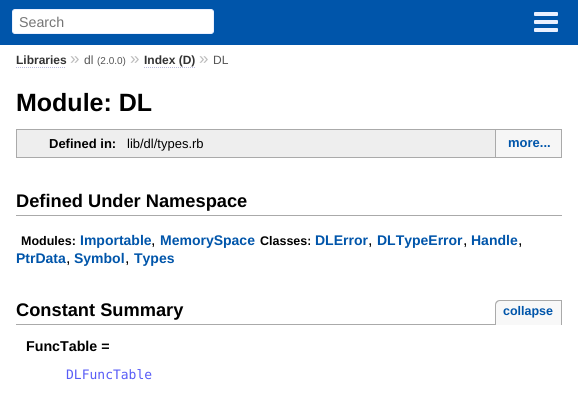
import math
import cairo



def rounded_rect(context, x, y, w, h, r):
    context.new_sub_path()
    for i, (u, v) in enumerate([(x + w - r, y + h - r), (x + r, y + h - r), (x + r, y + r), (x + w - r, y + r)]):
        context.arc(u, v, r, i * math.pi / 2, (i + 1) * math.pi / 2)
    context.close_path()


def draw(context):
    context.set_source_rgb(1, 1, 1)
    context.paint()
    context.set_source_rgb(0, 85 / 255, 170 / 255)
    context.rectangle(0, 0, 578, 45)
    context.fill()
    context.set_source_rgb(1, 1, 1)
    rounded_rect(context, 12.5, 9.5, 201, 24, 2.5)
    context.fill_preserve()
    context.set_source_rgb(234 / 255, 240 / 255, 1)
    context.set_line_width(1)
    context.stroke()
    rounded_rect(context, 534, 12, 24, 4, 1)
    context.fill()
    rounded_rect(context, 534, 20, 24, 4, 1)
    context.fill()
    rounded_rect(context, 534, 28, 24, 4, 1)
    context.fill()
    context.new_path()
    context.move_to(16, 67.5)
    context.line_to(66, 67.5)
    context.set_source_rgb(187 / 255, 187 / 255, 221 / 255)
    context.set_dash([1, 1])
    context.stroke()
    context.new_path()
    context.move_to(144, 67.5)
    context.line_to(195, 67.5)
    context.stroke()
    context.set_source_rgb(238 / 255, 238 / 255, 238 / 255)
    context.rectangle(17, 130, 478, 27)
    context.fill()
    context.set_source_rgb(170 / 255, 170 / 255, 170 / 255)
    context.rectangle(16, 129, 546, 1)
    context.fill()
    context.rectangle(16, 157, 111, 1)
    context.fill()
    context.rectangle(16, 129, 1, 29)
    context.fill()
    context.rectangle(561, 129, 1, 29)
    context.fill()
    context.rectangle(127, 157, 435, 1)
    context.fill()
    context.set_source_rgb(246 / 255, 246 / 255, 246 / 255)
    context.rectangle(496, 130, 65, 27)
    context.fill()
    context.set_source_rgb(170 / 255, 170 / 255, 170 / 255)
    context.rectangle(495, 130, 1, 27)
    context.fill()
    context.rectangle(16, 215, 546, 1)
    context.fill()
    context.rectangle(16, 324, 479, 1)
    context.fill()
    context.set_source_rgb(248 / 255, 248 / 255, 248 / 255)
    context.new_path()
    context.move_to(500, 300)
    context.line_to(562, 300)
    context.line_to(562, 325)
    context.line_to(495, 325)
    context.line_to(495, 305)
    context.curve_to(495, 302, 497, 300, 500, 300)
    context.close_path()
    context.fill()
    context.set_source_rgb(170 / 255, 170 / 255, 170 / 255)
    context.set_fill_rule(cairo.FillRule.EVEN_ODD)
    context.new_path()
    context.move_to(500, 300)
    context.line_to(562, 300)
    context.line_to(562, 325)
    context.line_to(495, 325)
    context.line_to(495, 305)
    context.curve_to(495, 302, 497, 300, 500, 300)
    context.close_path()
    context.move_to(500, 301)
    context.line_to(561, 301)
    context.line_to(561, 325)
    context.line_to(496, 325)
    context.line_to(496, 305)
    context.curve_to(496, 303, 498, 301, 500, 301)
    context.close_path()
    context.fill()
    context.select_font_face("Liberation Sans")
    context.set_font_size(14.25)
    context.set_source_rgb(117 / 255, 117 / 255, 117 / 255)
    context.move_to(19, 27)
    context.show_text("Search")
    context.select_font_face("Liberation Sans", cairo.FontSlant.NORMAL, cairo.FontWeight.BOLD)
    context.set_font_size(12)
    context.set_source_rgb(51 / 255, 51 / 255, 51 / 255)
    context.move_to(16, 64)
    context.show_text("Libraries")
    context.select_font_face("Liberation Sans")
    context.set_font_size(17)
    context.set_source_rgb(187 / 255, 187 / 255, 187 / 255)
    context.move_to(70, 64)
    context.show_text("»")
    context.set_font_size(12)
    context.set_source_rgb(85 / 255, 85 / 255, 85 / 255)
    context.move_to(84, 64)
    context.show_text("dl")
    context.set_font_size(10)
    context.move_to(97, 64)
    context.show_text("(2.0.0)")
    context.set_font_size(17)
    context.set_source_rgb(187 / 255, 187 / 255, 187 / 255)
    context.move_to(130, 64)
    context.show_text("»")
    context.select_font_face("Liberation Sans", cairo.FontSlant.NORMAL, cairo.FontWeight.BOLD)
    context.set_font_size(12)
    context.set_source_rgb(51 / 255, 51 / 255, 51 / 255)
    context.move_to(144, 64)
    context.show_text("Index (D)")
    context.select_font_face("Liberation Sans")
    context.set_font_size(17)
    context.set_source_rgb(187 / 255, 187 / 255, 187 / 255)
    context.move_to(199, 64)
    context.show_text("»")
    context.set_font_size(12)
    context.set_source_rgb(85 / 255, 85 / 255, 85 / 255)
    context.move_to(213, 64)
    context.show_text("DL")
    context.select_font_face("Liberation Sans", cairo.FontSlant.NORMAL, cairo.FontWeight.BOLD)
    context.set_font_size(25)
    context.set_source_rgb(0, 0, 0)
    context.move_to(16, 111)
    context.show_text("Module: DL")
    context.set_font_size(13)
    context.move_to(49, 148)
    context.show_text("Defined in:")
    context.select_font_face("Liberation Sans")
    context.move_to(127, 148)
    context.show_text("lib/dl/types.rb")
    context.select_font_face("Liberation Sans", cairo.FontSlant.NORMAL, cairo.FontWeight.BOLD)
    context.set_source_rgb(0, 85 / 255, 170 / 255)
    context.move_to(508, 147)
    context.show_text("more...")
    context.set_font_size(18.25)
    context.set_source_rgb(0, 0, 0)
    context.move_to(16, 207)
    context.show_text("Defined Under Namespace")
    context.set_font_size(12.5)
    context.move_to(21, 245)
    context.show_text("Modules:")
    context.set_font_size(14)
    context.set_source_rgb(0, 85 / 255, 170 / 255)
    context.move_to(80, 245)
    context.show_text("Importable")
    context.select_font_face("Liberation Sans")
    context.set_font_size(16)
    context.set_source_rgb(0, 0, 0)
    context.move_to(151, 245)
    context.show_text(",")
    context.select_font_face("Liberation Sans", cairo.FontSlant.NORMAL, cairo.FontWeight.BOLD)
    context.set_font_size(14)
    context.set_source_rgb(0, 85 / 255, 170 / 255)
    context.move_to(160, 245)
    context.show_text("MemorySpace")
    context.set_font_size(12.5)
    context.set_source_rgb(0, 0, 0)
    context.move_to(260, 245)
    context.show_text("Classes:")
    context.set_font_size(14)
    context.set_source_rgb(0, 85 / 255, 170 / 255)
    context.move_to(315, 245)
    context.show_text("DLError")
    context.select_font_face("Liberation Sans")
    context.set_font_size(16)
    context.set_source_rgb(0, 0, 0)
    context.move_to(368, 245)
    context.show_text(",")
    context.select_font_face("Liberation Sans", cairo.FontSlant.NORMAL, cairo.FontWeight.BOLD)
    context.set_font_size(14)
    context.set_source_rgb(0, 85 / 255, 170 / 255)
    context.move_to(377, 245)
    context.show_text("DLTypeError")
    context.select_font_face("Liberation Sans")
    context.set_font_size(16)
    context.set_source_rgb(0, 0, 0)
    context.move_to(463, 245)
    context.show_text(",")
    context.select_font_face("Liberation Sans", cairo.FontSlant.NORMAL, cairo.FontWeight.BOLD)
    context.set_font_size(14)
    context.set_source_rgb(0, 85 / 255, 170 / 255)
    context.move_to(471, 245)
    context.show_text("Handle")
    context.select_font_face("Liberation Sans")
    context.set_font_size(16)
    context.set_source_rgb(0, 0, 0)
    context.move_to(518, 245)
    context.show_text(",")
    context.select_font_face("Liberation Sans", cairo.FontSlant.NORMAL, cairo.FontWeight.BOLD)
    context.set_font_size(14)
    context.set_source_rgb(0, 85 / 255, 170 / 255)
    context.move_to(16, 263)
    context.show_text("PtrData")
    context.select_font_face("Liberation Sans")
    context.set_font_size(16)
    context.set_source_rgb(0, 0, 0)
    context.move_to(66, 263)
    context.show_text(",")
    context.select_font_face("Liberation Sans", cairo.FontSlant.NORMAL, cairo.FontWeight.BOLD)
    context.set_font_size(14)
    context.set_source_rgb(0, 85 / 255, 170 / 255)
    context.move_to(74, 263)
    context.show_text("Symbol")
    context.select_font_face("Liberation Sans")
    context.set_font_size(16)
    context.set_source_rgb(0, 0, 0)
    context.move_to(125, 263)
    context.show_text(",")
    context.select_font_face("Liberation Sans", cairo.FontSlant.NORMAL, cairo.FontWeight.BOLD)
    context.set_font_size(14)
    context.set_source_rgb(0, 85 / 255, 170 / 255)
    context.move_to(134, 263)
    context.show_text("Types")
    context.set_font_size(18.25)
    context.set_source_rgb(0, 0, 0)
    context.move_to(16, 316)
    context.show_text("Constant Summary")
    context.set_font_size(12.5)
    context.set_source_rgb(0, 85 / 255, 170 / 255)
    context.move_to(503, 315)
    context.show_text("collapse")
    context.set_font_size(14.25)
    context.set_source_rgb(0, 0, 0)
    context.move_to(26, 351)
    context.show_text("FuncTable =")
    context.select_font_face("DejaVu Sans Mono")
    context.set_font_size(13)
    context.set_source_rgb(88 / 255, 92 / 255, 246 / 255)
    context.move_to(66, 379)
    context.show_text("DLFuncTable")


surface = cairo.ImageSurface(cairo.Format.RGB24, 578, 393)
context = cairo.Context(surface)
options = cairo.FontOptions()
options.set_hint_metrics(cairo.HintMetrics.OFF)
options.set_hint_style(cairo.HintStyle.NONE)
context.set_font_options(options)
context.set_miter_limit(4)
draw(context)
surface.write_to_png("out.png")
